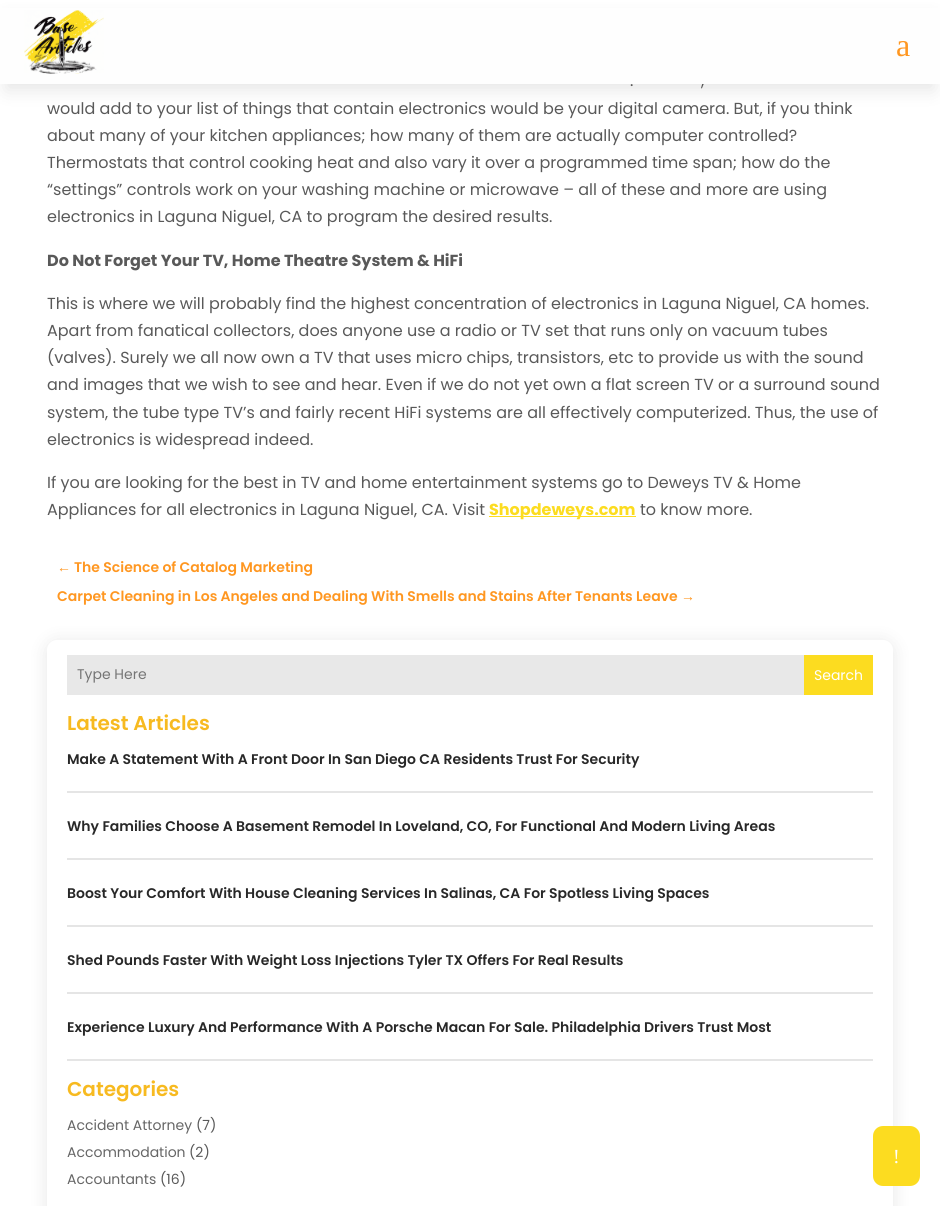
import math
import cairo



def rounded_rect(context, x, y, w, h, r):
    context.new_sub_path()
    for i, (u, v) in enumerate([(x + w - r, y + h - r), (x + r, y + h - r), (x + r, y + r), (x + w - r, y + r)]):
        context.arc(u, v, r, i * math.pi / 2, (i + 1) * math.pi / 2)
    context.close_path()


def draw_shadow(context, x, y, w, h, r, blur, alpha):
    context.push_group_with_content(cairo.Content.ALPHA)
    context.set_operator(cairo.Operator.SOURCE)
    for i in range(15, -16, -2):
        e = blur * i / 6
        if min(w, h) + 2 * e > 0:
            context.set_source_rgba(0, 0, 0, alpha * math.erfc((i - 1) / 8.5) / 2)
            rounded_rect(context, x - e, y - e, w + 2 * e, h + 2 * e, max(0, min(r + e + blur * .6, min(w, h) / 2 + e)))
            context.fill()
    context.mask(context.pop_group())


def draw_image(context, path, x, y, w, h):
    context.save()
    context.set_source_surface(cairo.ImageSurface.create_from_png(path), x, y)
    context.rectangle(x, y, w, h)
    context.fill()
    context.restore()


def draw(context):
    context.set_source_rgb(1, 1, 1)
    context.paint()
    context.set_source_rgb(0, 0, 0)
    draw_shadow(context, 6, 18, 928, 72, 0, 9, 0.1)
    context.set_source_rgb(254 / 255, 254 / 255, 254 / 255)
    context.rectangle(0, 8, 940, 76)
    context.fill()
    draw_image(context, "images/1.png", 24, 10, 80, 64)
    context.set_source_rgb(252 / 255, 220 / 255, 32 / 255)
    context.rectangle(489, 516, 147, 1)
    context.fill()
    context.set_source_rgb(0, 0, 0)
    draw_shadow(context, 47, 642, 846, 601, 10, 9, 0.1)
    context.set_source_rgb(1, 1, 1)
    rounded_rect(context, 47, 640, 846, 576, 10)
    context.fill()
    context.set_source_rgb(232 / 255, 232 / 255, 232 / 255)
    context.rectangle(67, 655, 737, 40)
    context.fill()
    context.set_source_rgb(252 / 255, 220 / 255, 32 / 255)
    context.rectangle(804, 655, 69, 40)
    context.fill()
    context.set_source_rgb(229 / 255, 229 / 255, 229 / 255)
    context.rectangle(67, 791, 806, 2)
    context.fill()
    context.rectangle(67, 858, 806, 2)
    context.fill()
    context.rectangle(67, 925, 806, 2)
    context.fill()
    context.rectangle(67, 992, 806, 2)
    context.fill()
    context.rectangle(67, 1059, 806, 2)
    context.fill()
    context.set_source_rgb(252 / 255, 220 / 255, 32 / 255)
    rounded_rect(context, 873, 1126, 47, 60, 10)
    context.fill()
    context.select_font_face("Liberation Serif")
    context.set_font_size(32)
    context.set_source_rgb(1, 151 / 255, 33 / 255)
    context.move_to(896, 56)
    context.show_text("a")
    context.select_font_face("Poppins")
    context.set_font_size(16)
    context.set_source_rgb(89 / 255, 89 / 255, 89 / 255)
    context.move_to(630, 86)
    context.show_text(".")
    context.move_to(701, 86)
    context.show_text(",")
    context.move_to(47, 114)
    context.show_text("would add to your list of things that contain electronics would be your digital camera. But, if you think")
    context.move_to(47, 141)
    context.show_text("about many of your kitchen appliances; how many of them are actually computer controlled?")
    context.move_to(47, 168)
    context.show_text("Thermostats that control cooking heat and also vary it over a programmed time span; how do the")
    context.move_to(47, 195)
    context.show_text("“settings” controls work on your washing machine or microwave – all of these and more are using")
    context.move_to(47, 222)
    context.show_text("electronics in Laguna Niguel, CA to program the desired results.")
    context.select_font_face("Poppins", cairo.FontSlant.NORMAL, cairo.FontWeight.BOLD)
    context.move_to(47, 266)
    context.show_text("Do Not Forget Your TV, Home Theatre System & HiFi")
    context.select_font_face("Poppins")
    context.move_to(47, 309)
    context.show_text("This is where we will probably find the highest concentration of electronics in Laguna Niguel, CA homes.")
    context.move_to(47, 336)
    context.show_text("Apart from fanatical collectors, does anyone use a radio or TV set that runs only on vacuum tubes")
    context.move_to(47, 363)
    context.show_text("(valves). Surely we all now own a TV that uses micro chips, transistors, etc to provide us with the sound")
    context.move_to(47, 390)
    context.show_text("and images that we wish to see and hear. Even if we do not yet own a flat screen TV or a surround sound")
    context.move_to(47, 418)
    context.show_text("system, the tube type TV’s and fairly recent HiFi systems are all effectively computerized. Thus, the use of")
    context.move_to(47, 445)
    context.show_text("electronics is widespread indeed.")
    context.move_to(47, 488)
    context.show_text("If you are looking for the best in TV and home entertainment systems go to Deweys TV & Home")
    context.move_to(47, 515)
    context.show_text("Appliances for all electronics in Laguna Niguel, CA. Visit")
    context.select_font_face("Poppins", cairo.FontSlant.NORMAL, cairo.FontWeight.BOLD)
    context.set_source_rgb(252 / 255, 220 / 255, 32 / 255)
    context.move_to(489, 515)
    context.show_text("Shopdeweys.com")
    context.select_font_face("Poppins")
    context.set_source_rgb(89 / 255, 89 / 255, 89 / 255)
    context.move_to(640, 515)
    context.show_text("to know more.")
    context.select_font_face("Liberation Sans", cairo.FontSlant.NORMAL, cairo.FontWeight.BOLD)
    context.set_font_size(14)
    context.set_source_rgb(1, 151 / 255, 33 / 255)
    context.move_to(57, 572)
    context.show_text("←")
    context.select_font_face("Poppins SemiBold")
    context.move_to(74, 572)
    context.show_text("The Science of Catalog Marketing")
    context.move_to(57, 601)
    context.show_text("Carpet Cleaning in Los Angeles and Dealing With Smells and Stains After Tenants Leave")
    context.select_font_face("Liberation Sans", cairo.FontSlant.NORMAL, cairo.FontWeight.BOLD)
    context.move_to(681, 601)
    context.show_text("→")
    context.select_font_face("Poppins")
    context.set_source_rgb(117 / 255, 117 / 255, 117 / 255)
    context.move_to(77, 679)
    context.show_text("Type Here")
    context.set_source_rgb(1, 1, 1)
    context.move_to(814, 680)
    context.show_text("Search")
    context.select_font_face("Poppins SemiBold")
    context.set_font_size(20)
    context.set_source_rgb(247 / 255, 186 / 255, 32 / 255)
    context.move_to(67, 730)
    context.show_text("Latest Articles")
    context.set_font_size(14)
    context.set_source_rgb(40 / 255, 40 / 255, 40 / 255)
    context.move_to(67, 764)
    context.show_text("Make A Statement With A Front Door In San Diego CA Residents Trust For Security")
    context.move_to(67, 831)
    context.show_text("Why Families Choose A Basement Remodel In Loveland, CO, For Functional And Modern Living Areas")
    context.move_to(67, 898)
    context.show_text("Boost Your Comfort With House Cleaning Services In Salinas, CA For Spotless Living Spaces")
    context.move_to(67, 965)
    context.show_text("Shed Pounds Faster With Weight Loss Injections Tyler TX Offers For Real Results")
    context.move_to(67, 1032)
    context.show_text("Experience Luxury And Performance With A Porsche Macan For Sale. Philadelphia Drivers Trust Most")
    context.set_font_size(20)
    context.set_source_rgb(247 / 255, 186 / 255, 32 / 255)
    context.move_to(67, 1096)
    context.show_text("Categories")
    context.select_font_face("Poppins")
    context.set_font_size(14)
    context.set_source_rgb(102 / 255, 102 / 255, 102 / 255)
    context.move_to(67, 1130)
    context.show_text("Accident Attorney")
    context.set_source_rgb(89 / 255, 89 / 255, 89 / 255)
    context.move_to(196, 1130)
    context.show_text("(7)")
    context.set_source_rgb(102 / 255, 102 / 255, 102 / 255)
    context.move_to(67, 1157)
    context.show_text("Accommodation")
    context.set_source_rgb(89 / 255, 89 / 255, 89 / 255)
    context.move_to(189, 1157)
    context.show_text("(2)")
    context.set_source_rgb(102 / 255, 102 / 255, 102 / 255)
    context.move_to(67, 1184)
    context.show_text("Accountants")
    context.set_source_rgb(89 / 255, 89 / 255, 89 / 255)
    context.move_to(160, 1184)
    context.show_text("(16)")
    context.select_font_face("Liberation Serif")
    context.set_font_size(20)
    context.set_source_rgb(1, 1, 1)
    context.move_to(893, 1163)
    context.show_text("!")


surface = cairo.ImageSurface(cairo.Format.RGB24, 940, 1206)
context = cairo.Context(surface)
options = cairo.FontOptions()
options.set_hint_metrics(cairo.HintMetrics.OFF)
options.set_hint_style(cairo.HintStyle.NONE)
context.set_font_options(options)
context.set_miter_limit(4)
draw(context)
surface.write_to_png("out.png")
